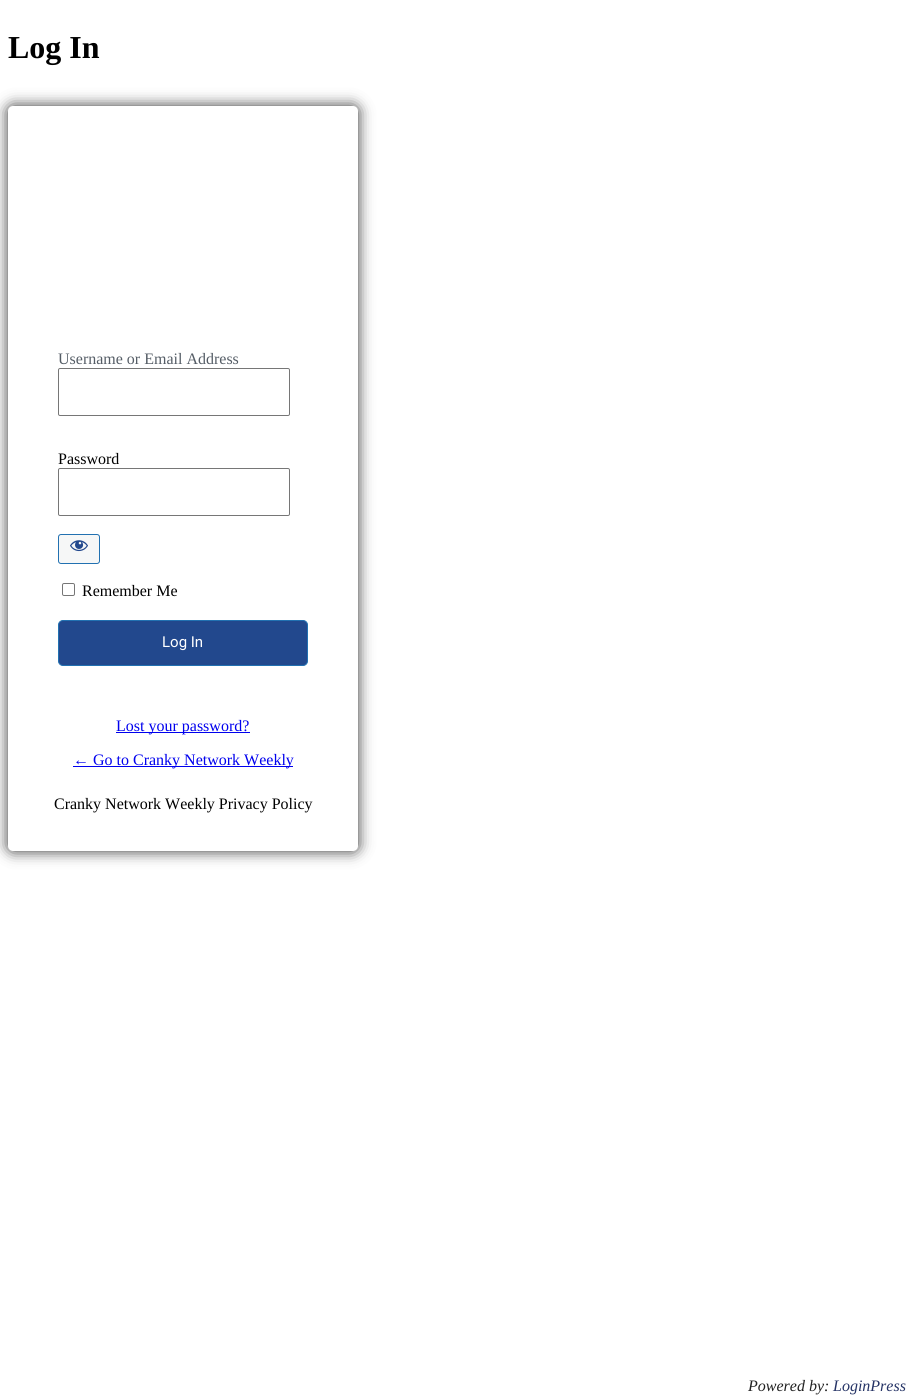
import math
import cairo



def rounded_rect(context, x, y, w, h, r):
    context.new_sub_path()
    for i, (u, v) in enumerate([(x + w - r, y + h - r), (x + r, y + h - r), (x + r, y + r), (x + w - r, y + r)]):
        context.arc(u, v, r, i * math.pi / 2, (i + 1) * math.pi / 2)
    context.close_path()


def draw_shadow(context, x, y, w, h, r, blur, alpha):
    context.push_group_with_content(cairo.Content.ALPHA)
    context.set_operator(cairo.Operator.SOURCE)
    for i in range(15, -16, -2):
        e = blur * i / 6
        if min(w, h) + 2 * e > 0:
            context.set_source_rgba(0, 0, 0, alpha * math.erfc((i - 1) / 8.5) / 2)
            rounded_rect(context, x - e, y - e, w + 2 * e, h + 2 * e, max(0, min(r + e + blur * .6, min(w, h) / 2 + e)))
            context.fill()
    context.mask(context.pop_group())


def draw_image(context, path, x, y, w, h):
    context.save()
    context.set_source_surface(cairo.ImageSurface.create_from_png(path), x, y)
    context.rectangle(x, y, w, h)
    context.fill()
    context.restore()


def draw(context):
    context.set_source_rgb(1, 1, 1)
    context.paint()
    context.set_source_rgb(0, 0, 0)
    draw_shadow(context, 8, 106, 350, 745, 5, 7.5, 0.8)
    context.set_source_rgb(1, 1, 1)
    rounded_rect(context, 8, 106, 350, 745, 5)
    context.fill()
    rounded_rect(context, 58.5, 368.5, 231, 47, 1.5)
    context.set_source_rgb(118 / 255, 118 / 255, 118 / 255)
    context.set_line_width(1)
    context.stroke()
    rounded_rect(context, 58.5, 468.5, 231, 47, 1.5)
    context.stroke()
    context.set_source_rgb(246 / 255, 247 / 255, 247 / 255)
    rounded_rect(context, 58.5, 534.5, 41, 29, 2.5)
    context.fill_preserve()
    context.set_source_rgb(34 / 255, 113 / 255, 177 / 255)
    context.stroke()
    draw_image(context, "images/1.png", 70, 540, 18, 12)
    rounded_rect(context, 62.5, 583.5, 12, 12, 1.5)
    context.set_source_rgb(118 / 255, 118 / 255, 118 / 255)
    context.stroke()
    context.set_source_rgb(34 / 255, 72 / 255, 141 / 255)
    rounded_rect(context, 58.5, 620.5, 249, 45, 4.5)
    context.fill_preserve()
    context.set_source_rgb(34 / 255, 113 / 255, 177 / 255)
    context.stroke()
    context.set_source_rgb(0, 0, 238 / 255)
    context.rectangle(116, 732, 134, 1)
    context.fill()
    context.rectangle(73, 766, 220, 1)
    context.fill()
    context.select_font_face("Liberation Serif", cairo.FontSlant.NORMAL, cairo.FontWeight.BOLD)
    context.set_font_size(32)
    context.set_source_rgb(0, 0, 0)
    context.move_to(8, 58)
    context.show_text("Log In")
    context.select_font_face("Liberation Serif")
    context.set_font_size(16)
    context.set_source_rgb(85 / 255, 93 / 255, 102 / 255)
    context.move_to(58, 364)
    context.show_text("Username or Email Address")
    context.set_source_rgb(0, 0, 0)
    context.move_to(58, 464)
    context.show_text("Password")
    context.move_to(82, 596)
    context.show_text("Remember Me")
    context.select_font_face("Roboto")
    context.set_font_size(15)
    context.set_source_rgb(1, 1, 1)
    context.move_to(162, 647)
    context.show_text("Log In")
    context.select_font_face("Liberation Serif")
    context.set_font_size(16)
    context.set_source_rgb(0, 0, 238 / 255)
    context.move_to(116, 731)
    context.show_text("Lost your password?")
    context.move_to(73, 765)
    context.show_text("← Go to Cranky Network Weekly")
    context.set_source_rgb(0, 0, 0)
    context.move_to(54, 809)
    context.show_text("Cranky Network Weekly Privacy Policy")
    context.select_font_face("Liberation Serif", cairo.FontSlant.ITALIC)
    context.set_source_rgb(34 / 255, 34 / 255, 34 / 255)
    context.move_to(748, 1391)
    context.show_text("Powered by:")
    context.set_source_rgb(38 / 255, 52 / 255, 102 / 255)
    context.move_to(833, 1391)
    context.show_text("LoginPress")


surface = cairo.ImageSurface(cairo.Format.RGB24, 918, 1400)
context = cairo.Context(surface)
options = cairo.FontOptions()
options.set_hint_metrics(cairo.HintMetrics.OFF)
options.set_hint_style(cairo.HintStyle.NONE)
context.set_font_options(options)
context.set_miter_limit(4)
draw(context)
surface.write_to_png("out.png")
